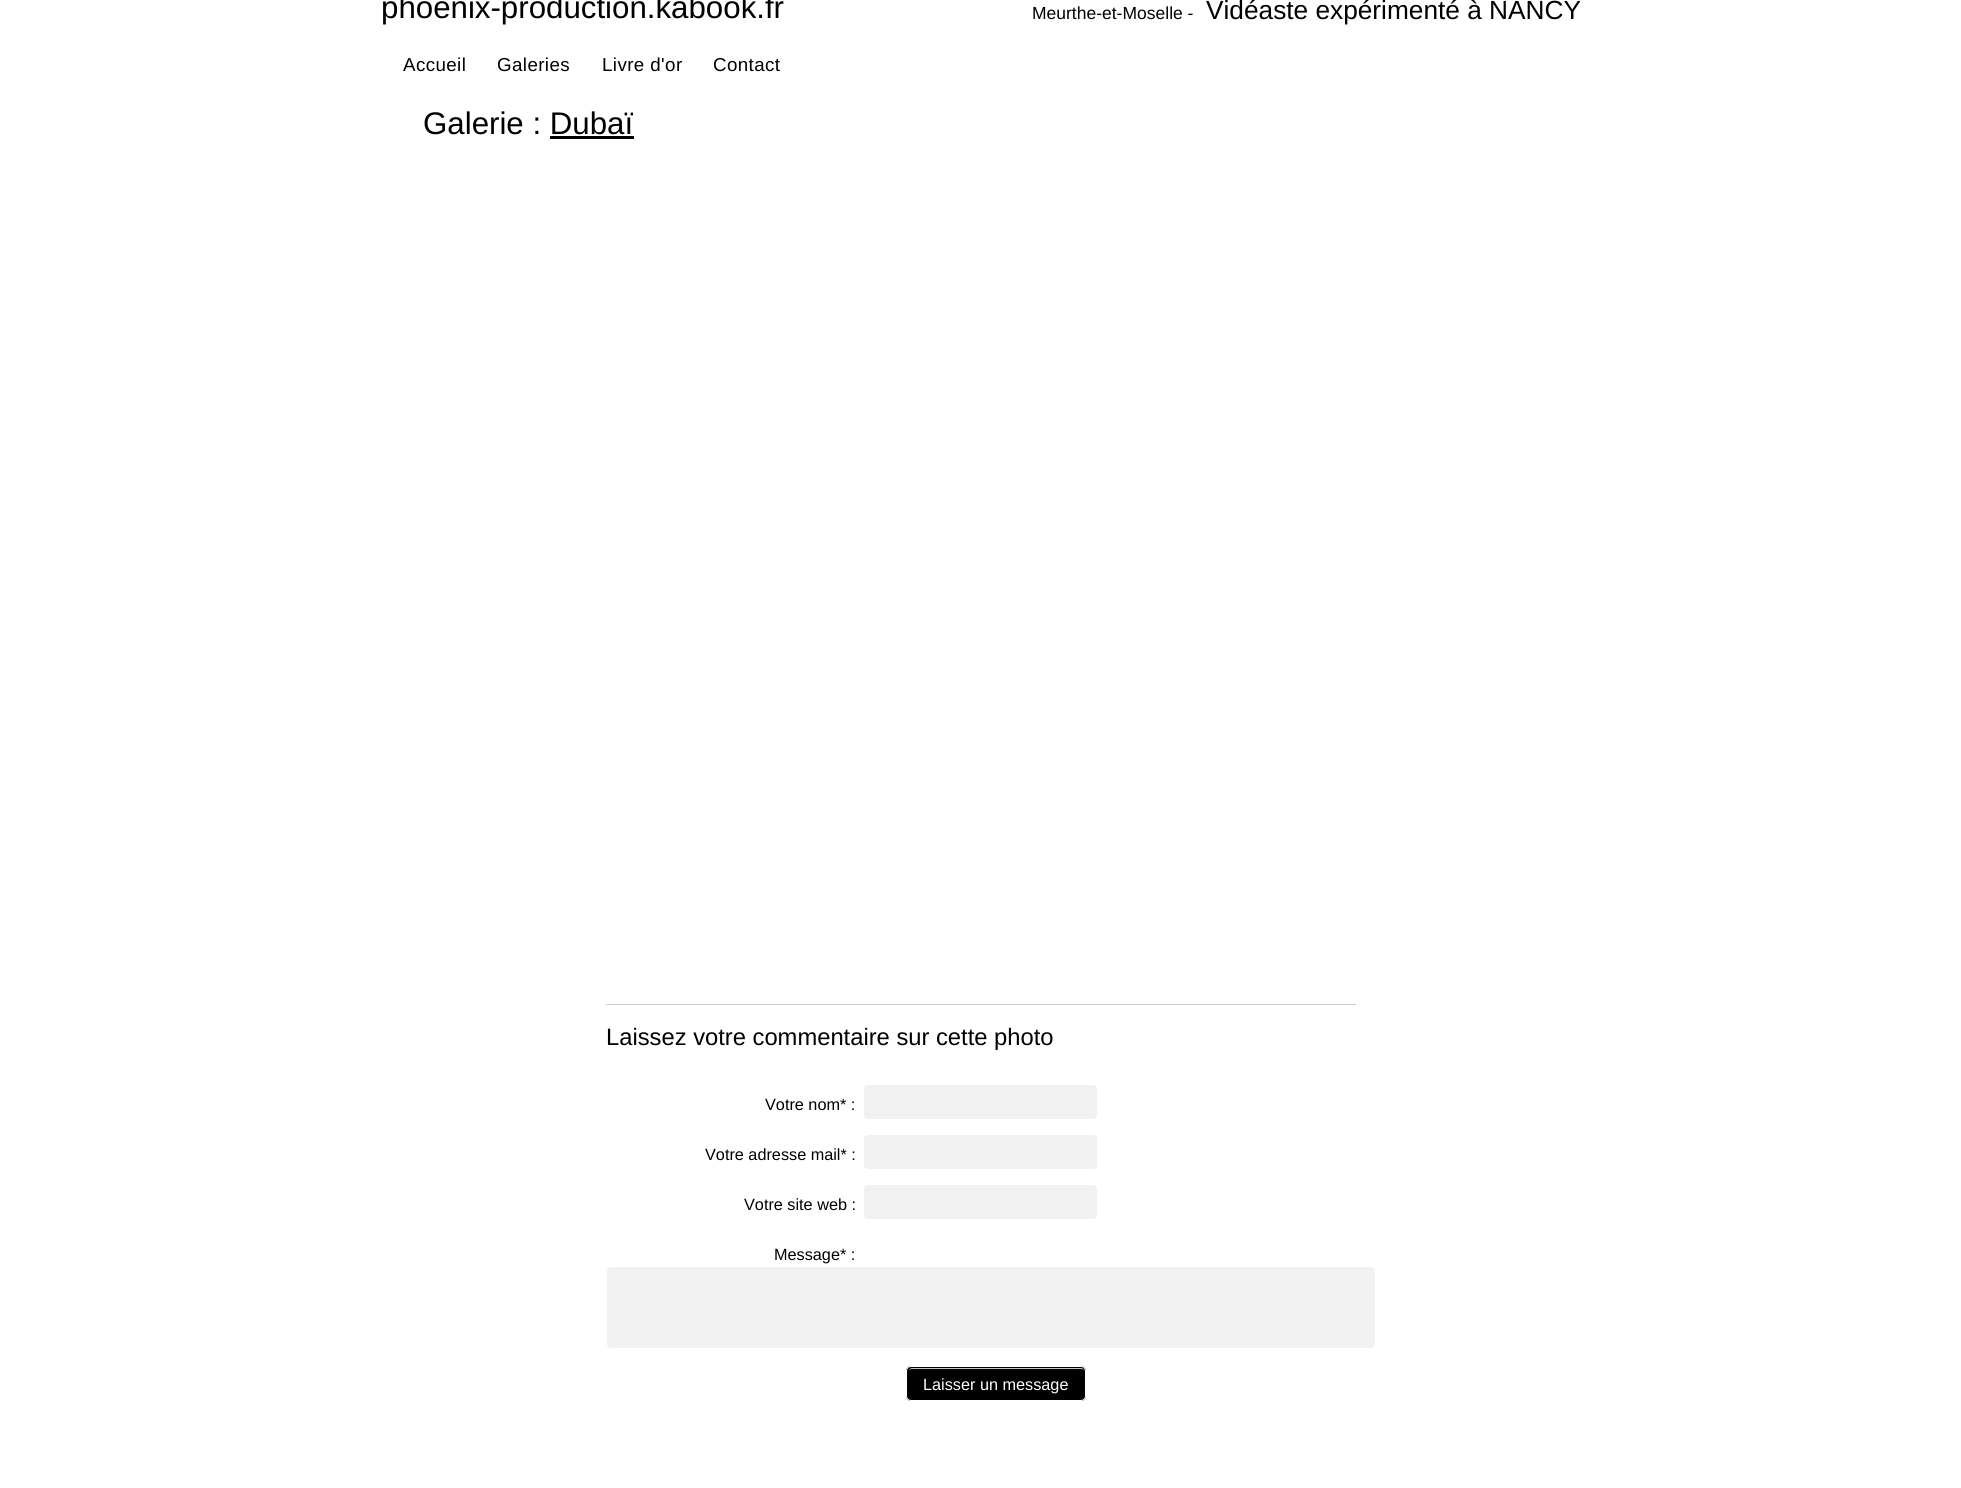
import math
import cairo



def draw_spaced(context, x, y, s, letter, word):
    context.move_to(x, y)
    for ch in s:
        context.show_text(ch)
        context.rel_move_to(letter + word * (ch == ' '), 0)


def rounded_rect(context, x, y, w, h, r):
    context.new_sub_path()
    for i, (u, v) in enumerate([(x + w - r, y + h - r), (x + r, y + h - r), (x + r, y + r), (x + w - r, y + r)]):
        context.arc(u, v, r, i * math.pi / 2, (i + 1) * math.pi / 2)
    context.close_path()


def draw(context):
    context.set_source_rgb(1, 1, 1)
    context.paint()
    context.set_source_rgb(0, 0, 0)
    context.rectangle(550, 136, 84, 3)
    context.fill()
    context.set_source_rgb(204 / 255, 204 / 255, 204 / 255)
    context.rectangle(606, 1004, 750, 1)
    context.fill()
    context.set_source_rgb(241 / 255, 241 / 255, 242 / 255)
    rounded_rect(context, 863.5, 1084.5, 234, 35, 4.5)
    context.fill_preserve()
    context.set_source_rgb(1, 1, 1)
    context.set_line_width(1)
    context.stroke()
    context.set_source_rgb(241 / 255, 241 / 255, 242 / 255)
    rounded_rect(context, 863.5, 1134.5, 234, 35, 4.5)
    context.fill_preserve()
    context.set_source_rgb(1, 1, 1)
    context.stroke()
    context.set_source_rgb(241 / 255, 241 / 255, 242 / 255)
    rounded_rect(context, 863.5, 1184.5, 234, 35, 4.5)
    context.fill_preserve()
    context.set_source_rgb(1, 1, 1)
    context.stroke()
    context.set_source_rgb(241 / 255, 241 / 255, 242 / 255)
    rounded_rect(context, 606.5, 1266.5, 769, 82, 4.5)
    context.fill_preserve()
    context.set_source_rgb(1, 1, 1)
    context.stroke()
    context.set_source_rgb(0, 0, 0)
    rounded_rect(context, 906, 1366, 180, 35, 5)
    context.fill()
    context.set_source_rgb(194 / 255, 194 / 255, 194 / 255)
    context.new_path()
    context.move_to(911, 1369)
    context.line_to(1081, 1369)
    context.curve_to(1083, 1369, 1085, 1370, 1085, 1372)
    context.curve_to(1085, 1370, 1083, 1368, 1081, 1368)
    context.line_to(912, 1368)
    context.curve_to(911, 1368, 909, 1369, 909, 1370)
    context.close_path()
    context.fill()
    rounded_rect(context, 906.5, 1366.5, 179, 34, 4.5)
    context.set_source_rgb(1, 1, 1)
    context.stroke()
    context.select_font_face("Liberation Sans")
    context.set_font_size(31.25)
    context.set_source_rgb(0, 0, 0)
    context.move_to(381, 18)
    context.show_text("phoenix-production.kabook.fr")
    context.set_font_size(17.5)
    context.move_to(1032, 19)
    context.show_text("Meurthe-et-Moselle -")
    context.set_font_size(26.25)
    context.move_to(1206, 19)
    context.show_text("Vidéaste expérimenté à NANCY")
    context.set_font_size(18.75)
    draw_spaced(context, 403, 71, "Accueil", 0.4, 0)
    draw_spaced(context, 497, 71, "Galeries", 0.4, 0)
    draw_spaced(context, 602, 71, "Livre d'or", 0.4, 0)
    draw_spaced(context, 713, 71, "Contact", 0.4, 0)
    context.set_font_size(31.25)
    context.move_to(423, 134)
    context.show_text("Galerie : Dubaï")
    context.set_font_size(23.75)
    context.move_to(606, 1045)
    context.show_text("Laissez votre commentaire sur cette photo")
    context.set_font_size(16.25)
    context.move_to(765, 1110)
    context.show_text("Votre nom* :")
    context.move_to(705, 1160)
    context.show_text("Votre adresse mail* :")
    context.move_to(744, 1210)
    context.show_text("Votre site web :")
    context.move_to(774, 1260)
    context.show_text("Message* :")
    context.set_source_rgb(1, 1, 1)
    context.move_to(923, 1390)
    context.show_text("Laisser un message")


surface = cairo.ImageSurface(cairo.Format.RGB24, 1961, 1488)
context = cairo.Context(surface)
options = cairo.FontOptions()
options.set_hint_metrics(cairo.HintMetrics.OFF)
options.set_hint_style(cairo.HintStyle.NONE)
context.set_font_options(options)
context.set_miter_limit(4)
draw(context)
surface.write_to_png("out.png")
